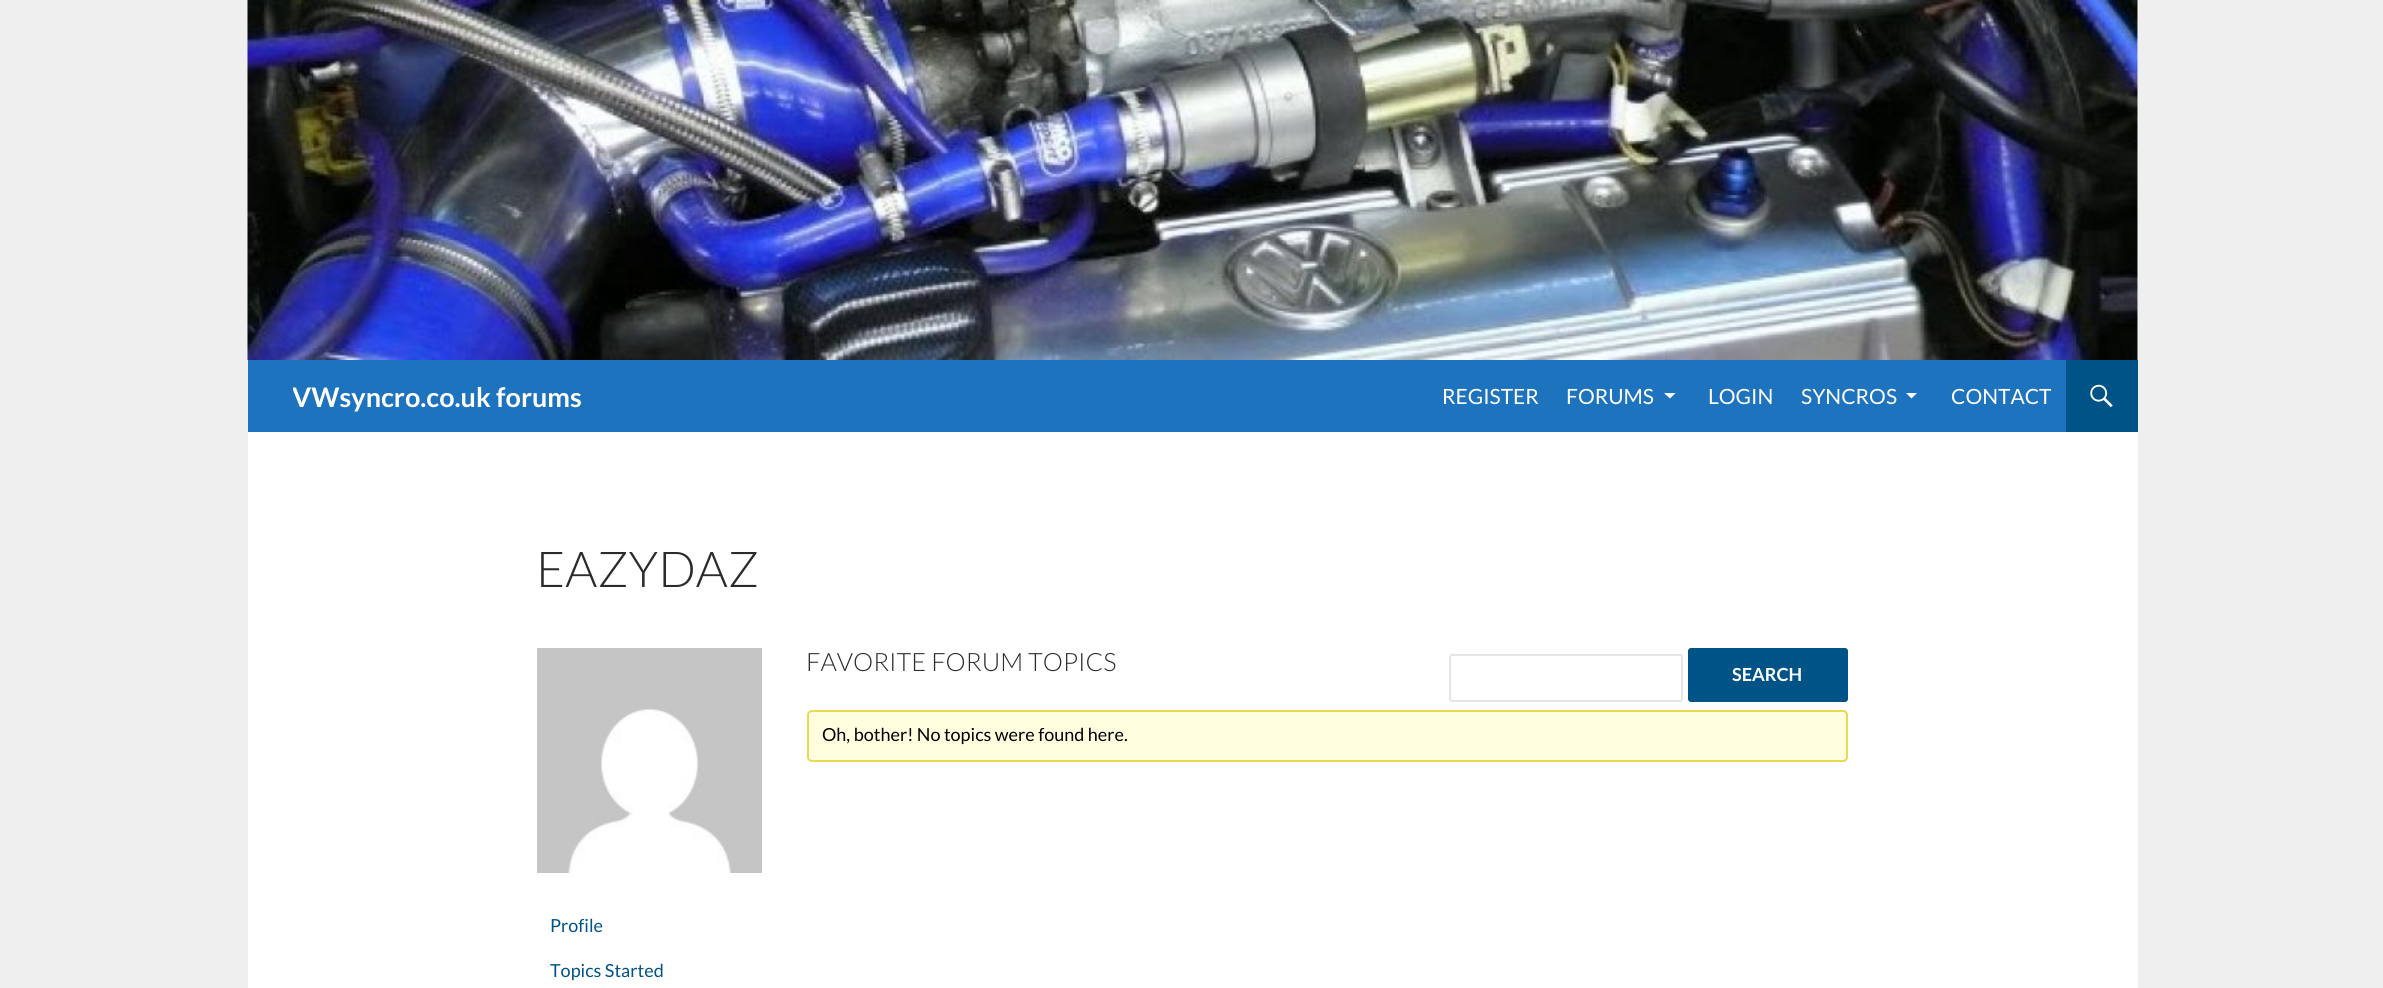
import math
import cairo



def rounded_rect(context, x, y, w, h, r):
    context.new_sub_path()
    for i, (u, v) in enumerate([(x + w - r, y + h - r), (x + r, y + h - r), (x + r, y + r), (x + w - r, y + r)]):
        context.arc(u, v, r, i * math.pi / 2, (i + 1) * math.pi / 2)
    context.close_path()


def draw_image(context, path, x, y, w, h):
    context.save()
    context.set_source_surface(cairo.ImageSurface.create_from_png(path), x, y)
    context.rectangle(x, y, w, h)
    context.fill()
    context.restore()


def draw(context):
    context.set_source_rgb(239 / 255, 239 / 255, 239 / 255)
    context.paint()
    context.set_source_rgb(1, 1, 1)
    context.rectangle(248, 0, 1890, 988)
    context.fill()
    draw_image(context, "images/1.png", 247, 0, 1891, 360)
    context.set_source_rgb(30 / 255, 115 / 255, 190 / 255)
    context.rectangle(248, 360, 1818, 72)
    context.fill()
    context.set_source_rgb(1, 1, 1)
    context.new_path()
    context.move_to(1664, 393)
    context.line_to(1675.5, 393)
    context.line_to(1670, 398.5)
    context.close_path()
    context.fill()
    context.new_path()
    context.move_to(1906, 393)
    context.line_to(1917, 393)
    context.line_to(1911.5, 398.5)
    context.close_path()
    context.fill()
    context.set_source_rgb(0, 83 / 255, 135 / 255)
    context.rectangle(2066, 360, 72, 72)
    context.fill()
    draw_image(context, "images/2.png", 2090, 384, 23, 24)
    rounded_rect(context, 1450, 655, 232, 46, 2)
    context.set_source_rgb(230 / 255, 230 / 255, 230 / 255)
    context.stroke()
    context.set_source_rgb(0, 83 / 255, 135 / 255)
    rounded_rect(context, 1688, 648, 160, 54, 3)
    context.fill()
    context.set_source_rgb(1, 1, 224 / 255)
    rounded_rect(context, 808, 711, 1039, 50, 4)
    context.fill_preserve()
    context.set_source_rgb(230 / 255, 219 / 255, 85 / 255)
    context.stroke()
    draw_image(context, "images/3.png", 537, 648, 225, 225)
    context.save()
    context.rectangle(293, 360, 289, 72)
    context.clip()
    context.select_font_face("Lato", cairo.FontSlant.NORMAL, cairo.FontWeight.BOLD)
    context.set_font_size(27)
    context.set_source_rgb(1, 1, 1)
    context.move_to(292, 407)
    context.show_text("VWsyncro.co.uk forums")
    context.restore()
    context.select_font_face("Lato")
    context.set_font_size(21)
    context.set_source_rgb(1, 1, 1)
    context.move_to(1442, 404)
    context.show_text("REGISTER")
    context.move_to(1566, 404)
    context.show_text("FORUMS")
    context.move_to(1708, 404)
    context.show_text("LOGIN")
    context.move_to(1801, 404)
    context.show_text("SYNCROS")
    context.move_to(1951, 404)
    context.show_text("CONTACT")
    context.select_font_face("Lato Light")
    context.set_font_size(49.5)
    context.set_source_rgb(43 / 255, 43 / 255, 43 / 255)
    context.move_to(536, 587)
    context.show_text("EAZYDAZ")
    context.set_font_size(25.25)
    context.move_to(806, 671)
    context.show_text("FAVORITE FORUM TOPICS")
    context.select_font_face("Lato", cairo.FontSlant.NORMAL, cairo.FontWeight.BOLD)
    context.set_font_size(18)
    context.set_source_rgb(1, 1, 1)
    context.move_to(1732, 681)
    context.show_text("SEARCH")
    context.select_font_face("Lato")
    context.set_source_rgb(0, 0, 0)
    context.move_to(822, 741)
    context.show_text("Oh, bother! No topics were found here.")
    context.set_source_rgb(0, 83 / 255, 135 / 255)
    context.move_to(550, 932)
    context.show_text("Profile")
    context.move_to(550, 977)
    context.show_text("Topics Started")


surface = cairo.ImageSurface(cairo.Format.RGB24, 2383, 988)
context = cairo.Context(surface)
options = cairo.FontOptions()
options.set_hint_metrics(cairo.HintMetrics.OFF)
options.set_hint_style(cairo.HintStyle.NONE)
context.set_font_options(options)
context.set_miter_limit(4)
draw(context)
surface.write_to_png("out.png")
